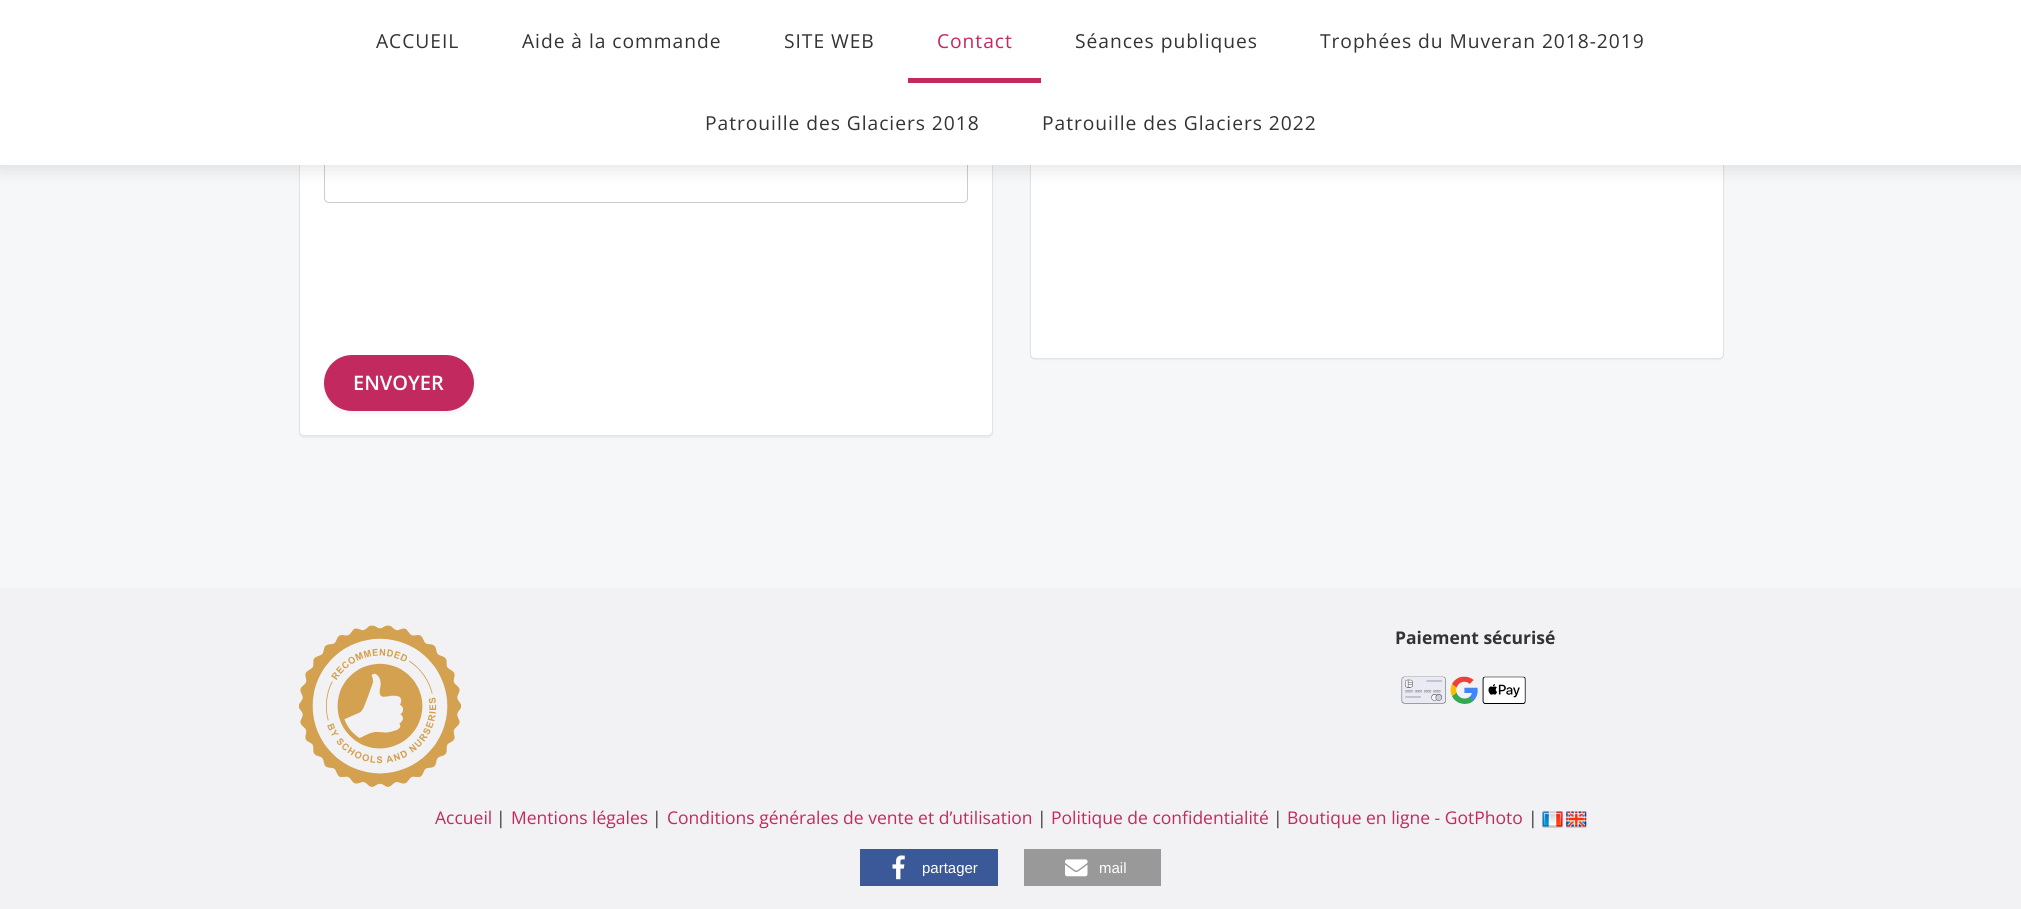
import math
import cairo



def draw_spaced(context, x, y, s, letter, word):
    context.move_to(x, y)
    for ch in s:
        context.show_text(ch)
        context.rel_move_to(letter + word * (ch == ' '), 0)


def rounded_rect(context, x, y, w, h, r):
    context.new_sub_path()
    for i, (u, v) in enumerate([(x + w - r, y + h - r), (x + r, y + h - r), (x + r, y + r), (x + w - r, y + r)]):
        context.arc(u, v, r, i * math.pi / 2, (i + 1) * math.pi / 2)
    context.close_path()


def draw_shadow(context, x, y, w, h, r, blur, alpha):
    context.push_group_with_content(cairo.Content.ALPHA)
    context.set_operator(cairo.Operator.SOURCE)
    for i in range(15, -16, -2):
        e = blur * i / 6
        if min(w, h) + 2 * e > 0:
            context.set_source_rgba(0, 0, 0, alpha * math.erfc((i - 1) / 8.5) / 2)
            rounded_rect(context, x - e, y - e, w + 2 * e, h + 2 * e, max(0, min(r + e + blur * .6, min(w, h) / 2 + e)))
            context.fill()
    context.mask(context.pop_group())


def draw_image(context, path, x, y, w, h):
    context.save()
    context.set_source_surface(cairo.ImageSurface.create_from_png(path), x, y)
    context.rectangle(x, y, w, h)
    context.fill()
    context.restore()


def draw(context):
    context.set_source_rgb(246 / 255, 247 / 255, 248 / 255)
    context.paint()
    context.set_source_rgb(0, 0, 0)
    draw_shadow(context, 1030, -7, 694, 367, 5, 0.5, 0.05)
    context.set_source_rgb(1, 1, 1)
    rounded_rect(context, 1030.5, -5.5, 693, 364, 4.5)
    context.fill_preserve()
    context.set_source_rgb(227 / 255, 227 / 255, 227 / 255)
    context.set_line_width(1)
    context.stroke()
    context.set_source_rgb(0, 0, 0)
    draw_shadow(context, 299, -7, 694, 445, 5, 0.5, 0.05)
    context.set_source_rgb(1, 1, 1)
    rounded_rect(context, 299.5, -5.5, 693, 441, 4.5)
    context.fill_preserve()
    context.set_source_rgb(227 / 255, 227 / 255, 227 / 255)
    context.stroke()
    rounded_rect(context, 324.5, 35.5, 643, 167, 4.5)
    context.set_source_rgb(204 / 255, 204 / 255, 204 / 255)
    context.stroke()
    context.set_source_rgb(0, 0, 0)
    draw_shadow(context, -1, -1, 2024, 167, 0, 10.5, 0.14)
    context.set_source_rgb(1, 1, 1)
    context.rectangle(0, 0, 2021, 165)
    context.fill()
    context.set_source_rgb(194 / 255, 41 / 255, 95 / 255)
    context.rectangle(908, 78, 133, 5)
    context.fill()
    context.set_source_rgb(0, 0, 0)
    draw_shadow(context, 324, 358, 150, 56, 28, 2.5, 0.05)
    context.set_source_rgb(194 / 255, 41 / 255, 95 / 255)
    rounded_rect(context, 324, 355, 150, 56, 28)
    context.fill()
    context.set_source_rgb(242 / 255, 241 / 255, 244 / 255)
    context.rectangle(0, 588, 2021, 321)
    context.fill()
    draw_image(context, "images/1.png", 299, 625, 162, 162)
    draw_image(context, "images/2.png", 1401, 676, 125, 28)
    draw_image(context, "images/3.png", 1542, 811, 21, 17)
    draw_image(context, "images/4.png", 1566, 811, 21, 17)
    context.set_source_rgb(59 / 255, 89 / 255, 152 / 255)
    context.rectangle(860, 849, 138, 37)
    context.fill()
    draw_image(context, "images/5.png", 892, 855, 13, 25)
    context.set_source_rgb(153 / 255, 153 / 255, 153 / 255)
    context.rectangle(1024, 849, 137, 37)
    context.fill()
    draw_image(context, "images/6.png", 1065, 859, 23, 18)
    context.select_font_face("Open Sans")
    context.set_font_size(19.25)
    context.set_source_rgb(51 / 255, 51 / 255, 51 / 255)
    draw_spaced(context, 376, 48, "ACCUEIL", 0.95, 0)
    draw_spaced(context, 522, 48, "Aide à la commande", 0.95, 0)
    draw_spaced(context, 784, 48, "SITE WEB", 0.95, 0)
    context.set_source_rgb(194 / 255, 41 / 255, 95 / 255)
    draw_spaced(context, 937, 48, "Contact", 0.95, 0)
    context.set_source_rgb(51 / 255, 51 / 255, 51 / 255)
    draw_spaced(context, 1075, 48, "Séances publiques", 0.95, 0)
    draw_spaced(context, 1320, 48, "Trophées du Muveran 2018-2019", 0.95, 0)
    draw_spaced(context, 705, 130, "Patrouille des Glaciers 2018", 0.95, 0)
    draw_spaced(context, 1042, 130, "Patrouille des Glaciers 2022", 0.95, 0)
    context.select_font_face("Open Sans SemiBold")
    context.set_font_size(20)
    context.set_source_rgb(1, 1, 1)
    context.move_to(353, 390)
    context.show_text("ENVOYER")
    context.select_font_face("Open Sans", cairo.FontSlant.NORMAL, cairo.FontWeight.BOLD)
    context.set_font_size(17.5)
    context.set_source_rgb(51 / 255, 51 / 255, 51 / 255)
    context.move_to(1395, 644)
    context.show_text("Paiement sécurisé")
    context.select_font_face("Open Sans")
    context.set_source_rgb(194 / 255, 41 / 255, 95 / 255)
    context.move_to(435, 824)
    context.show_text("Accueil")
    context.set_source_rgb(51 / 255, 51 / 255, 51 / 255)
    context.move_to(496, 824)
    context.show_text("|")
    context.set_source_rgb(194 / 255, 41 / 255, 95 / 255)
    context.move_to(511, 824)
    context.show_text("Mentions légales")
    context.set_source_rgb(51 / 255, 51 / 255, 51 / 255)
    context.move_to(652, 824)
    context.show_text("|")
    context.set_source_rgb(194 / 255, 41 / 255, 95 / 255)
    context.move_to(667, 824)
    context.show_text("Conditions générales de vente et d’utilisation")
    context.set_source_rgb(51 / 255, 51 / 255, 51 / 255)
    context.move_to(1037, 824)
    context.show_text("|")
    context.set_source_rgb(194 / 255, 41 / 255, 95 / 255)
    context.move_to(1051, 824)
    context.show_text("Politique de confidentialité")
    context.set_source_rgb(51 / 255, 51 / 255, 51 / 255)
    context.move_to(1273, 824)
    context.show_text("|")
    context.set_source_rgb(194 / 255, 41 / 255, 95 / 255)
    context.move_to(1287, 824)
    context.show_text("Boutique en ligne - GotPhoto")
    context.set_source_rgb(51 / 255, 51 / 255, 51 / 255)
    context.move_to(1528, 824)
    context.show_text("|")
    context.select_font_face("Liberation Sans")
    context.set_font_size(15)
    context.set_source_rgb(1, 1, 1)
    context.move_to(922, 873)
    context.show_text("partager")
    context.move_to(1099, 873)
    context.show_text("mail")


surface = cairo.ImageSurface(cairo.Format.RGB24, 2021, 909)
context = cairo.Context(surface)
options = cairo.FontOptions()
options.set_hint_metrics(cairo.HintMetrics.OFF)
options.set_hint_style(cairo.HintStyle.NONE)
context.set_font_options(options)
context.set_miter_limit(4)
draw(context)
surface.write_to_png("out.png")
